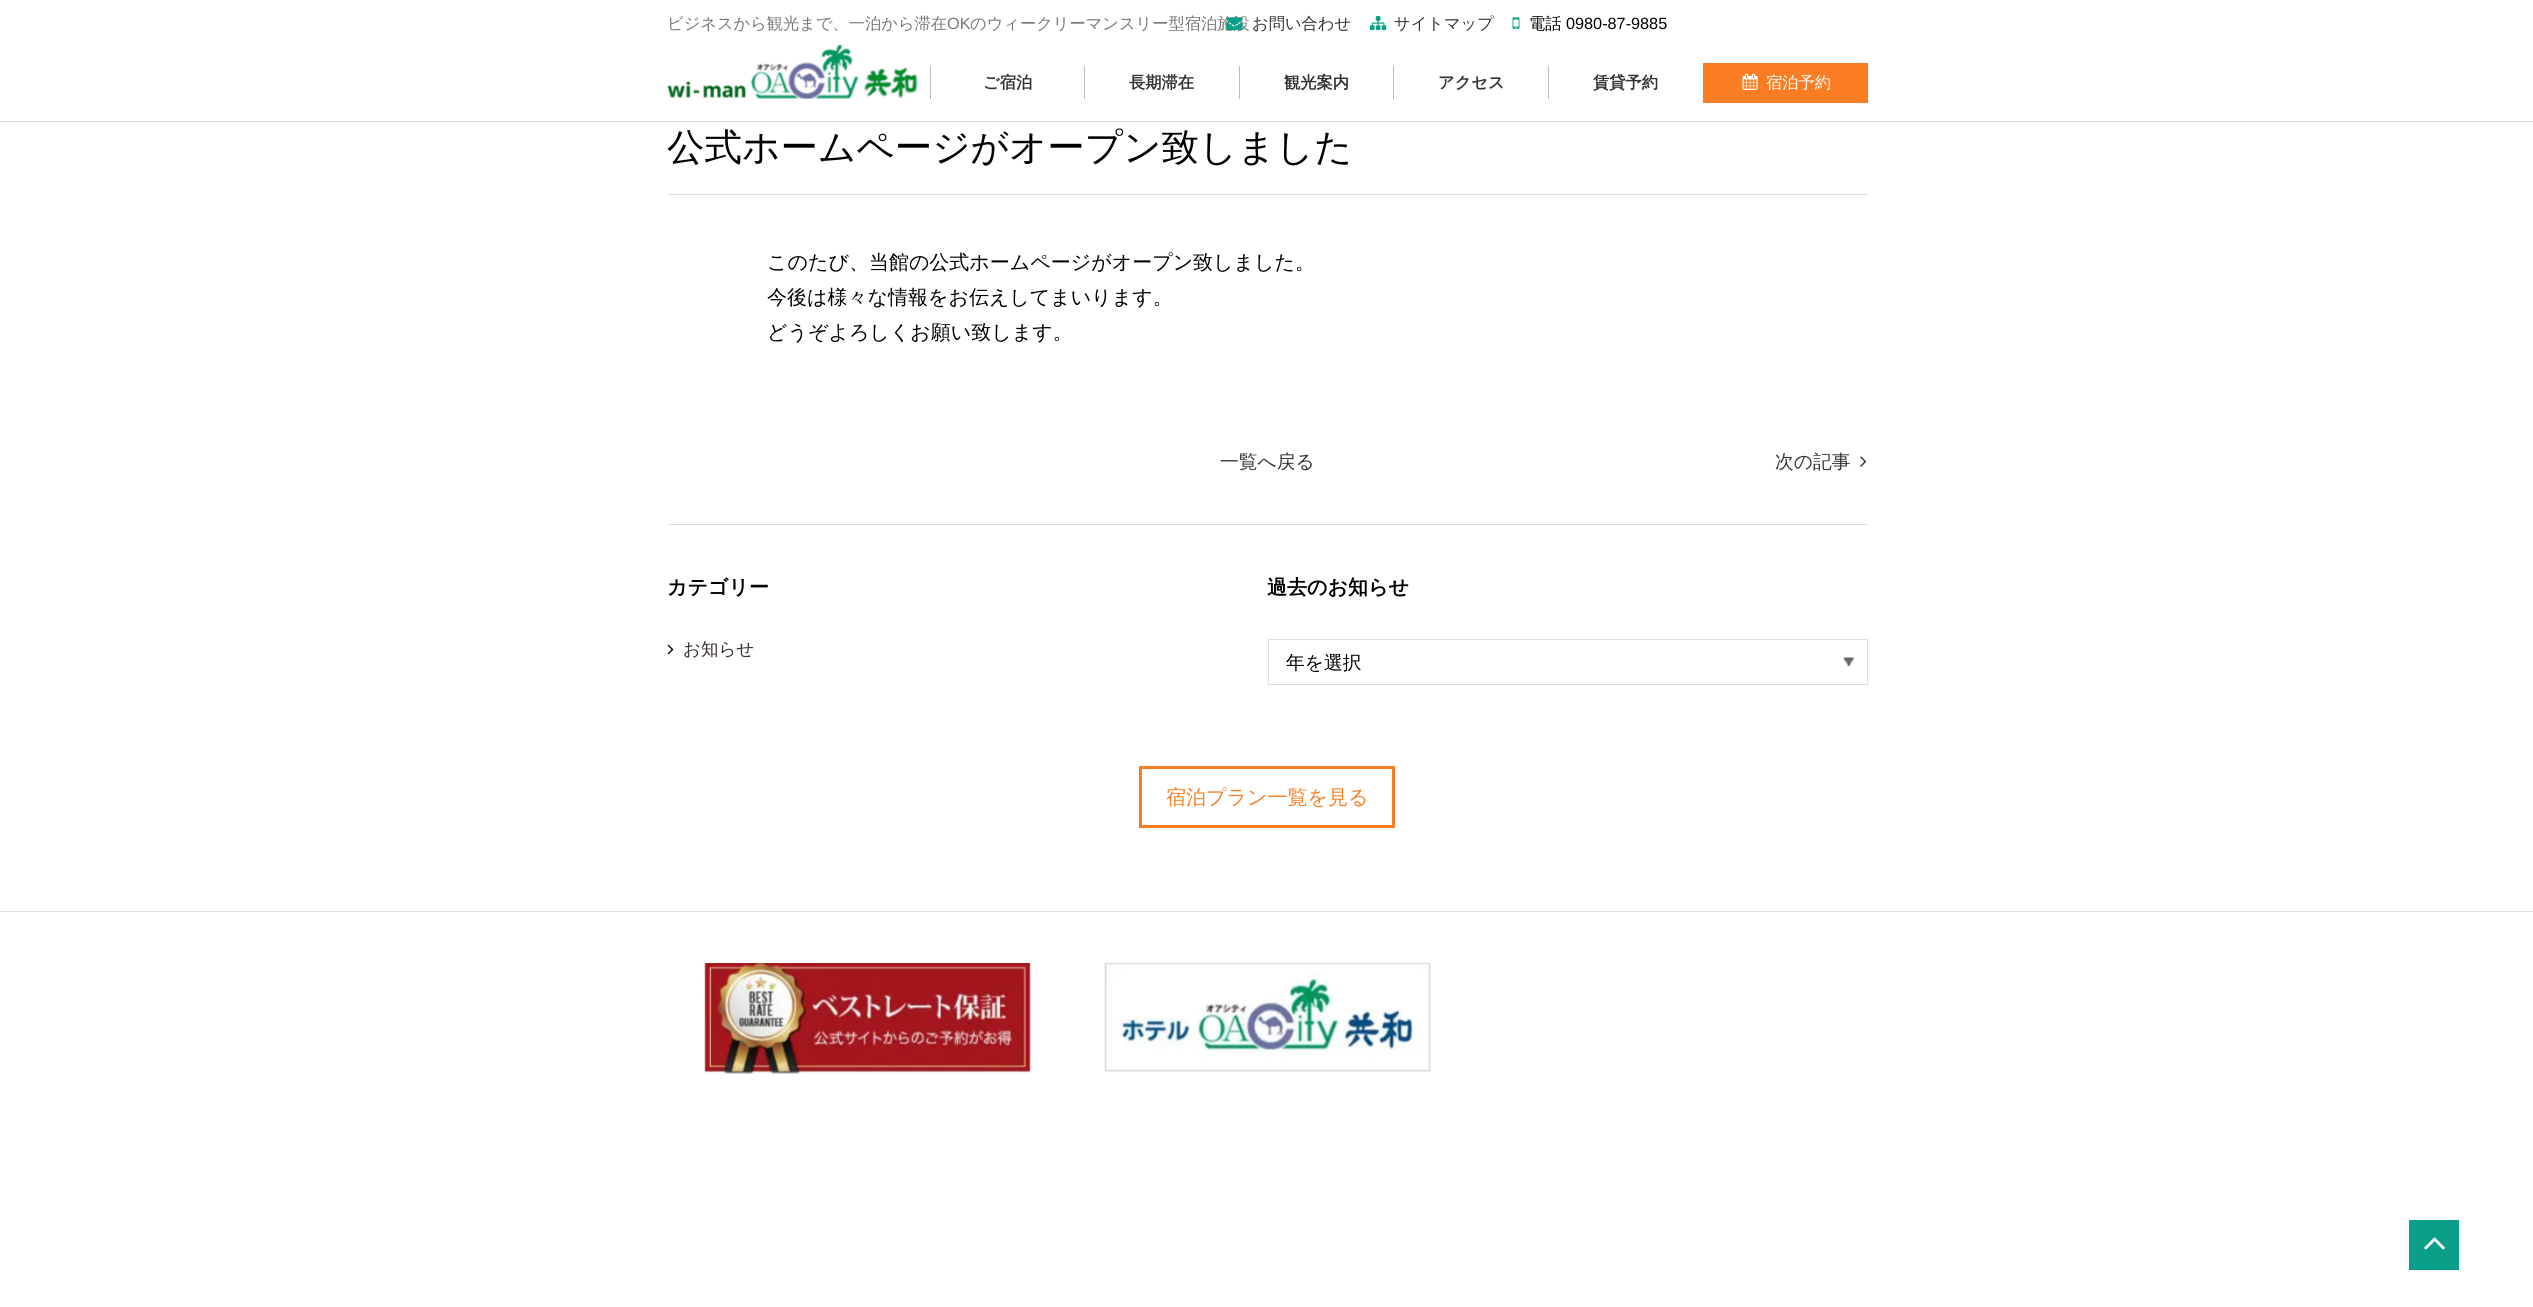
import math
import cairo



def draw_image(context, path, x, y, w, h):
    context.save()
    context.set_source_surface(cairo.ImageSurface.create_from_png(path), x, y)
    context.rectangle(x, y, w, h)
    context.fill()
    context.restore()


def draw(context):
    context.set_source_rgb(1, 1, 1)
    context.paint()
    context.set_source_rgb(221 / 255, 221 / 255, 221 / 255)
    context.rectangle(0, 121, 2533, 1)
    context.fill()
    draw_image(context, "images/2.png", 1370, 16, 17, 15)
    draw_image(context, "images/3.png", 1512, 17, 8, 12)
    context.set_source_rgb(190 / 255, 184 / 255, 178 / 255)
    context.rectangle(930, 66, 1, 33)
    context.fill()
    context.rectangle(1084, 66, 1, 33)
    context.fill()
    context.rectangle(1239, 66, 1, 33)
    context.fill()
    context.rectangle(1393, 66, 1, 33)
    context.fill()
    context.rectangle(1548, 66, 1, 33)
    context.fill()
    context.set_source_rgb(250 / 255, 125 / 255, 35 / 255)
    context.rectangle(1703, 63, 165, 40)
    context.fill()
    draw_image(context, "images/4.png", 1742, 73, 16, 17)
    draw_image(context, "images/5.png", 667, 45, 251, 54)
    context.set_source_rgb(221 / 255, 221 / 255, 221 / 255)
    context.rectangle(668, 194, 1200, 1)
    context.fill()
    draw_image(context, "images/6.png", 1860, 456, 7, 11)
    context.rectangle(668, 524, 1200, 1)
    context.fill()
    draw_image(context, "images/7.png", 667, 644, 7, 11)
    draw_image(context, "images/8.png", 1843, 657, 11, 10)
    context.rectangle(1268.5, 639.5, 599, 45)
    context.set_line_width(1)
    context.stroke()
    context.rectangle(1140.5, 767.5, 253, 59)
    context.set_source_rgb(250 / 255, 125 / 255, 35 / 255)
    context.set_line_width(3)
    context.stroke()
    context.set_source_rgb(221 / 255, 221 / 255, 221 / 255)
    context.rectangle(0, 911, 2533, 1)
    context.fill()
    draw_image(context, "images/9.png", 704, 963, 327, 111)
    draw_image(context, "images/10.png", 1104, 963, 327, 109)
    context.set_source_rgb(9 / 255, 159 / 255, 136 / 255)
    context.rectangle(2409, 1220, 50, 50)
    context.fill()
    draw_image(context, "images/11.png", 2424, 1237, 21, 13)
    context.select_font_face("WenQuanYi Zen Hei Medium")
    context.set_font_size(16.25)
    context.set_source_rgb(119 / 255, 119 / 255, 119 / 255)
    context.move_to(667, 29)
    context.show_text("ビジネスから観光まで、一泊から滞在")
    context.select_font_face("Liberation Sans")
    context.move_to(947, 29)
    context.show_text("OK")
    context.select_font_face("WenQuanYi Zen Hei Medium")
    context.move_to(970, 29)
    context.show_text("のウィークリーマンスリー型宿泊施設")
    draw_image(context, "images/1.png", 1226, 17, 17, 14)
    context.set_source_rgb(51 / 255, 51 / 255, 51 / 255)
    context.move_to(1252, 29)
    context.show_text("お問い合わせ")
    context.move_to(1394, 29)
    context.show_text("サイトマップ")
    context.set_source_rgb(0, 0, 0)
    context.move_to(1529, 29)
    context.show_text("電話")
    context.select_font_face("Liberation Sans")
    context.move_to(1566, 29)
    context.show_text("0980-87-9885")
    context.select_font_face("WenQuanYi Zen Hei", cairo.FontSlant.NORMAL, cairo.FontWeight.BOLD)
    context.set_source_rgb(51 / 255, 51 / 255, 51 / 255)
    context.move_to(983, 88)
    context.show_text("ご宿泊")
    context.move_to(1129, 88)
    context.show_text("長期滞在")
    context.move_to(1284, 88)
    context.show_text("観光案内")
    context.move_to(1438, 88)
    context.show_text("アクセス")
    context.move_to(1593, 88)
    context.show_text("賃貸予約")
    context.select_font_face("WenQuanYi Zen Hei Medium")
    context.set_source_rgb(1, 1, 1)
    context.move_to(1766, 88)
    context.show_text("宿泊予約")
    context.set_font_size(37.5)
    context.set_source_rgb(0, 0, 0)
    context.move_to(667, 160)
    context.show_text("公式ホームページがオープン致しました")
    context.set_font_size(20)
    context.move_to(767, 269)
    context.show_text("このたび、当館の公式ホームページがオープン致しました。")
    context.move_to(767, 304)
    context.show_text("今後は様々な情報をお伝えしてまいります。")
    context.move_to(767, 339)
    context.show_text("どうぞよろしくお願い致します。")
    context.set_font_size(18.75)
    context.set_source_rgb(51 / 255, 51 / 255, 51 / 255)
    context.move_to(1220, 468)
    context.show_text("一覧へ戻る")
    context.move_to(1775, 468)
    context.show_text("次の記事")
    context.select_font_face("WenQuanYi Zen Hei", cairo.FontSlant.NORMAL, cairo.FontWeight.BOLD)
    context.set_font_size(20)
    context.set_source_rgb(0, 0, 0)
    context.move_to(667, 594)
    context.show_text("カテゴリー")
    context.select_font_face("WenQuanYi Zen Hei Medium")
    context.set_font_size(17.5)
    context.set_source_rgb(54 / 255, 46 / 255, 43 / 255)
    context.move_to(683, 655)
    context.show_text("お知らせ")
    context.select_font_face("WenQuanYi Zen Hei", cairo.FontSlant.NORMAL, cairo.FontWeight.BOLD)
    context.set_font_size(20)
    context.set_source_rgb(0, 0, 0)
    context.move_to(1267, 594)
    context.show_text("過去のお知らせ")
    context.select_font_face("WenQuanYi Zen Hei Medium")
    context.set_font_size(18.75)
    context.move_to(1286, 669)
    context.show_text("年を選択")
    context.set_font_size(20)
    context.set_source_rgb(250 / 255, 125 / 255, 35 / 255)
    context.move_to(1166, 804)
    context.show_text("宿泊プラン一覧を見る")


surface = cairo.ImageSurface(cairo.Format.RGB24, 2533, 1307)
context = cairo.Context(surface)
options = cairo.FontOptions()
options.set_hint_metrics(cairo.HintMetrics.OFF)
options.set_hint_style(cairo.HintStyle.NONE)
context.set_font_options(options)
context.set_miter_limit(4)
draw(context)
surface.write_to_png("out.png")
